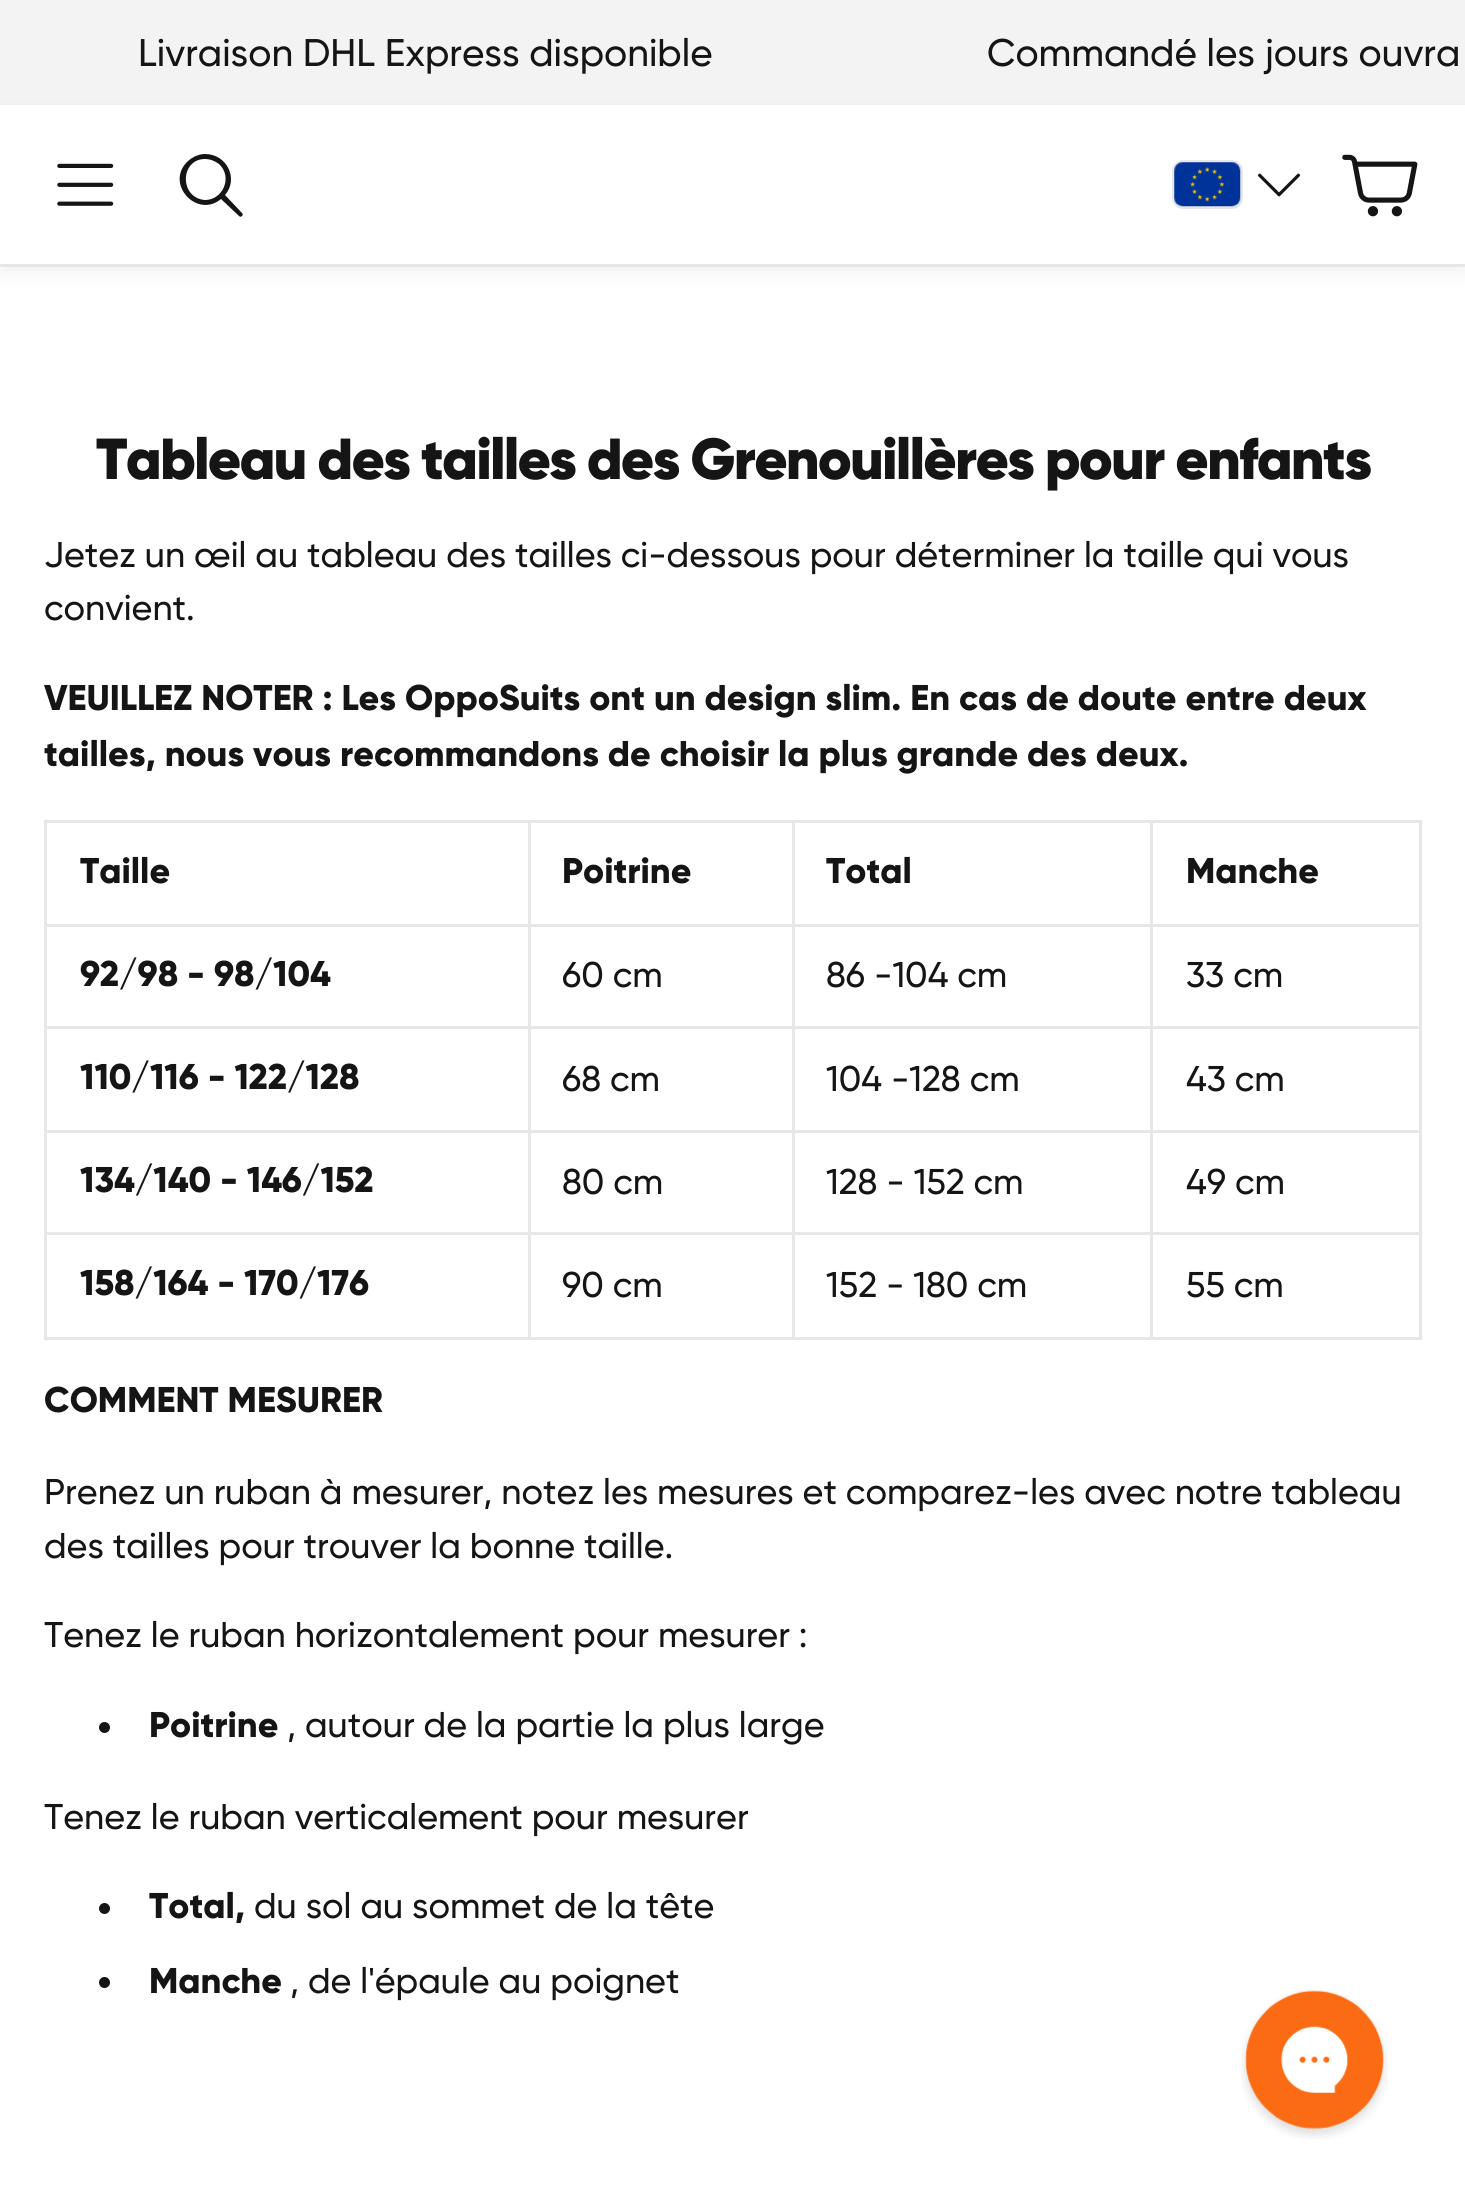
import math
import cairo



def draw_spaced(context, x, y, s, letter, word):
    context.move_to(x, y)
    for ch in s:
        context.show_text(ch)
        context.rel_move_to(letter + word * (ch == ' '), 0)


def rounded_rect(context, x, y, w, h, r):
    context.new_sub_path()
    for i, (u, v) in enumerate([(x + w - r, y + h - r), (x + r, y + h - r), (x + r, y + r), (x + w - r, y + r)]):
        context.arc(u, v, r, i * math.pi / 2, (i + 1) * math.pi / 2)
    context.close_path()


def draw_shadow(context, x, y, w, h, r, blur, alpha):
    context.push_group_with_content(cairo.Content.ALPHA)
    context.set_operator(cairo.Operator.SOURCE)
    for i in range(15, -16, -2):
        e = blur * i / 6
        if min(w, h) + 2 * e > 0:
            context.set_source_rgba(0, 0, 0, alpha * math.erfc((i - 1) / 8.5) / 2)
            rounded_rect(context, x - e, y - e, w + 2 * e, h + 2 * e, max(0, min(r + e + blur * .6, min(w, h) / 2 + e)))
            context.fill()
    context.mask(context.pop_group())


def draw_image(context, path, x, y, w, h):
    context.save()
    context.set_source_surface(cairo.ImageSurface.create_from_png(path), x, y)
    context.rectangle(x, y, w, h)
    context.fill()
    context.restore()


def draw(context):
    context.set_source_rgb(1, 1, 1)
    context.paint()
    context.set_source_rgb(243 / 255, 243 / 255, 243 / 255)
    context.rectangle(0, 0, 1465, 105)
    context.fill()
    context.set_source_rgb(0, 0, 0)
    draw_shadow(context, 0, 113, 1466, 162, 0, 8, 0.05)
    context.set_source_rgb(1, 1, 1)
    context.rectangle(0, 106, 1465, 158)
    context.fill()
    context.set_source_rgb(231 / 255, 231 / 255, 231 / 255)
    context.rectangle(0, 264, 1465, 3)
    context.fill()
    draw_image(context, "images/1.png", 57, 163, 57, 43)
    context.set_source_rgb(21 / 255, 21 / 255, 21 / 255)
    context.new_path()
    context.move_to(205, 154)
    context.curve_to(199, 154, 192, 157, 187, 162)
    context.curve_to(165, 184, 197, 219, 221, 199)
    context.line_to(239, 216)
    context.curve_to(240, 217, 241, 217, 242, 216)
    context.curve_to(243, 215, 243, 214, 242, 213)
    context.line_to(225, 195)
    context.curve_to(239, 179, 227, 154, 205, 154)
    context.close_path()
    context.move_to(205, 159)
    context.curve_to(210, 159, 215, 161, 219, 164)
    context.curve_to(233, 177, 223, 200, 205, 200)
    context.curve_to(179, 198, 180, 159, 205, 159)
    context.close_path()
    context.fill()
    rounded_rect(context, 1173.5, 161.5, 68, 46, 9.5)
    context.set_source_rgb(231 / 255, 231 / 255, 231 / 255)
    context.set_line_width(3)
    context.stroke()
    draw_image(context, "images/2.png", 1174, 162, 67, 45)
    draw_image(context, "images/3.png", 1257, 173, 44, 24)
    draw_image(context, "images/4.png", 1342, 154, 76, 63)
    context.rectangle(44, 820, 1378, 3)
    context.fill()
    context.rectangle(1419, 820, 3, 519)
    context.fill()
    context.rectangle(44, 1337, 1378, 3)
    context.fill()
    context.rectangle(44, 820, 3, 519)
    context.fill()
    context.rectangle(1150, 924, 272, 3)
    context.fill()
    context.rectangle(1150, 1026, 272, 3)
    context.fill()
    context.rectangle(1150, 1130, 272, 3)
    context.fill()
    context.rectangle(1150, 1232, 272, 3)
    context.fill()
    context.rectangle(1150, 1232, 3, 107)
    context.fill()
    context.rectangle(792, 1232, 360, 3)
    context.fill()
    context.rectangle(1150, 1130, 3, 105)
    context.fill()
    context.rectangle(792, 1130, 360, 3)
    context.fill()
    context.rectangle(1150, 1026, 3, 107)
    context.fill()
    context.rectangle(792, 1026, 360, 3)
    context.fill()
    context.rectangle(1150, 924, 3, 105)
    context.fill()
    context.rectangle(792, 924, 360, 3)
    context.fill()
    context.rectangle(792, 1232, 3, 107)
    context.fill()
    context.rectangle(528, 1232, 267, 3)
    context.fill()
    context.rectangle(792, 1130, 3, 105)
    context.fill()
    context.rectangle(528, 1130, 267, 3)
    context.fill()
    context.rectangle(792, 1026, 3, 107)
    context.fill()
    context.rectangle(528, 1026, 267, 3)
    context.fill()
    context.rectangle(792, 924, 3, 105)
    context.fill()
    context.rectangle(528, 924, 267, 3)
    context.fill()
    context.rectangle(528, 1232, 3, 107)
    context.fill()
    context.rectangle(44, 1232, 487, 3)
    context.fill()
    context.rectangle(528, 1130, 3, 105)
    context.fill()
    context.rectangle(44, 1130, 487, 3)
    context.fill()
    context.rectangle(528, 1026, 3, 107)
    context.fill()
    context.rectangle(44, 1026, 487, 3)
    context.fill()
    context.rectangle(528, 924, 3, 105)
    context.fill()
    context.rectangle(44, 924, 487, 3)
    context.fill()
    context.rectangle(528, 820, 3, 107)
    context.fill()
    context.rectangle(792, 820, 3, 107)
    context.fill()
    context.rectangle(1150, 820, 3, 107)
    context.fill()
    context.set_source_rgb(21 / 255, 21 / 255, 21 / 255)
    context.arc(104.5, 1727.5, 5.5, 0, 2 * math.pi)
    context.fill()
    context.arc(104.5, 1908.5, 5.5, 0, 2 * math.pi)
    context.fill()
    context.arc(104.5, 1982.5, 5.5, 0, 2 * math.pi)
    context.fill()
    draw_image(context, "images/5.png", 1241, 1990, 147, 149)
    context.select_font_face("Gilroy Medium")
    context.set_font_size(38.5)
    context.move_to(138, 66)
    context.show_text("Livraison DHL Express disponible")
    context.move_to(987, 66)
    context.show_text("Commandé les jours ouvra")
    context.select_font_face("Gilroy Black")
    context.set_font_size(57.75)
    draw_spaced(context, 96, 479, "Tableau des tailles des Grenouillères pour enfants", -1.38, 0)
    context.select_font_face("Gilroy Medium")
    context.set_font_size(35.75)
    context.move_to(44, 567)
    context.show_text("Jetez un œil au tableau des tailles ci-dessous pour déterminer la taille qui vous")
    context.move_to(44, 620)
    context.show_text("convient.")
    context.select_font_face("Gilroy ExtraBold")
    context.move_to(44, 710)
    context.show_text("VEUILLEZ NOTER : Les OppoSuits ont un design slim. En cas de doute entre deux")
    context.move_to(44, 766)
    context.show_text("tailles, nous vous recommandons de choisir la plus grande des deux.")
    context.move_to(80, 883)
    context.show_text("Taille")
    context.move_to(562, 883)
    context.show_text("Poitrine")
    context.move_to(826, 883)
    context.show_text("Total")
    context.move_to(1186, 883)
    context.show_text("Manche")
    context.move_to(80, 986)
    context.show_text("92/98 - 98/104")
    context.select_font_face("Gilroy Medium")
    context.move_to(562, 987)
    context.show_text("60 cm")
    context.move_to(826, 987)
    context.show_text("86 -104 cm")
    context.move_to(1186, 987)
    context.show_text("33 cm")
    context.select_font_face("Gilroy ExtraBold")
    context.move_to(80, 1089)
    context.show_text("110/116 - 122/128")
    context.select_font_face("Gilroy Medium")
    context.move_to(562, 1091)
    context.show_text("68 cm")
    context.move_to(826, 1091)
    context.show_text("104 -128 cm")
    context.move_to(1186, 1091)
    context.show_text("43 cm")
    context.select_font_face("Gilroy ExtraBold")
    context.move_to(80, 1192)
    context.show_text("134/140 - 146/152")
    context.select_font_face("Gilroy Medium")
    context.move_to(562, 1194)
    context.show_text("80 cm")
    context.move_to(826, 1194)
    context.show_text("128 - 152 cm")
    context.move_to(1186, 1194)
    context.show_text("49 cm")
    context.select_font_face("Gilroy ExtraBold")
    context.move_to(80, 1295)
    context.show_text("158/164 - 170/176")
    context.select_font_face("Gilroy Medium")
    context.move_to(562, 1297)
    context.show_text("90 cm")
    context.move_to(826, 1297)
    context.show_text("152 - 180 cm")
    context.move_to(1186, 1297)
    context.show_text("55 cm")
    context.select_font_face("Gilroy ExtraBold")
    context.move_to(44, 1412)
    context.show_text("COMMENT MESURER")
    context.select_font_face("Gilroy Medium")
    context.move_to(44, 1504)
    context.show_text("Prenez un ruban à mesurer, notez les mesures et comparez-les avec notre tableau")
    context.move_to(44, 1558)
    context.show_text("des tailles pour trouver la bonne taille.")
    context.move_to(44, 1647)
    context.show_text("Tenez le ruban horizontalement pour mesurer :")
    context.select_font_face("Gilroy ExtraBold")
    context.move_to(149, 1737)
    context.show_text("Poitrine")
    context.select_font_face("Gilroy Medium")
    context.move_to(287, 1737)
    context.show_text(", autour de la partie la plus large")
    context.move_to(44, 1829)
    context.show_text("Tenez le ruban verticalement pour mesurer")
    context.select_font_face("Gilroy ExtraBold")
    context.move_to(149, 1918)
    context.show_text("Total,")
    context.select_font_face("Gilroy Medium")
    context.move_to(254, 1918)
    context.show_text("du sol au sommet de la tête")
    context.select_font_face("Gilroy ExtraBold")
    context.move_to(149, 1993)
    context.show_text("Manche")
    context.select_font_face("Gilroy Medium")
    context.move_to(290, 1993)
    context.show_text(", de l'épaule au poignet")


surface = cairo.ImageSurface(cairo.Format.RGB24, 1465, 2201)
context = cairo.Context(surface)
options = cairo.FontOptions()
options.set_hint_metrics(cairo.HintMetrics.OFF)
options.set_hint_style(cairo.HintStyle.NONE)
context.set_font_options(options)
context.set_miter_limit(4)
draw(context)
surface.write_to_png("out.png")
